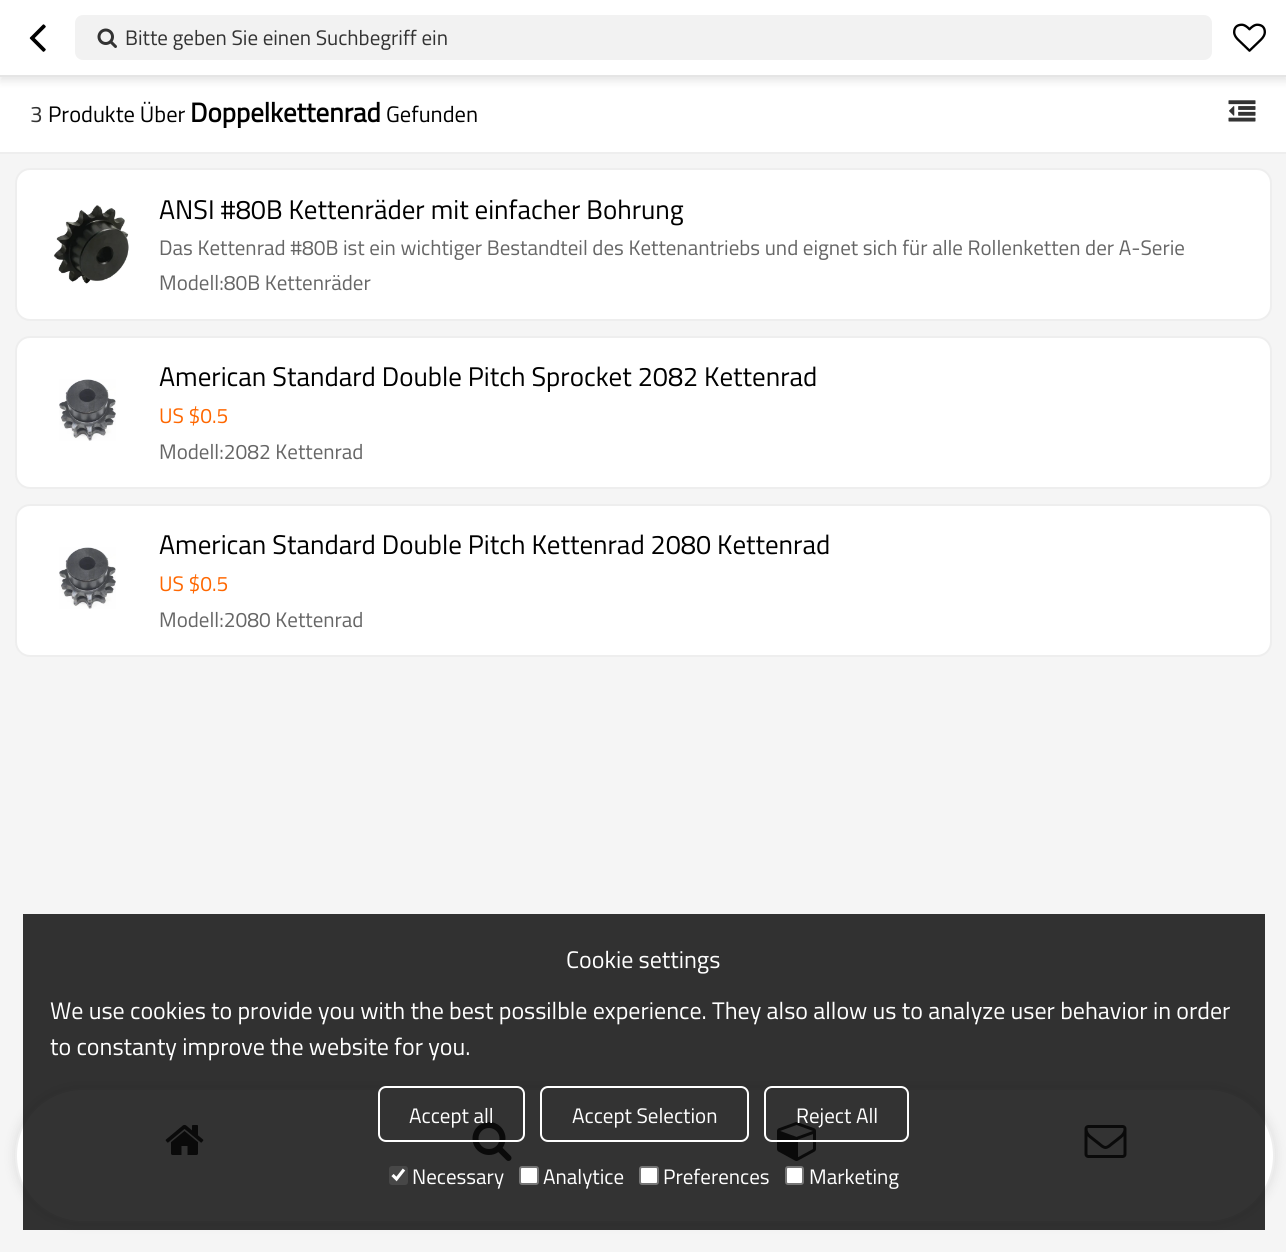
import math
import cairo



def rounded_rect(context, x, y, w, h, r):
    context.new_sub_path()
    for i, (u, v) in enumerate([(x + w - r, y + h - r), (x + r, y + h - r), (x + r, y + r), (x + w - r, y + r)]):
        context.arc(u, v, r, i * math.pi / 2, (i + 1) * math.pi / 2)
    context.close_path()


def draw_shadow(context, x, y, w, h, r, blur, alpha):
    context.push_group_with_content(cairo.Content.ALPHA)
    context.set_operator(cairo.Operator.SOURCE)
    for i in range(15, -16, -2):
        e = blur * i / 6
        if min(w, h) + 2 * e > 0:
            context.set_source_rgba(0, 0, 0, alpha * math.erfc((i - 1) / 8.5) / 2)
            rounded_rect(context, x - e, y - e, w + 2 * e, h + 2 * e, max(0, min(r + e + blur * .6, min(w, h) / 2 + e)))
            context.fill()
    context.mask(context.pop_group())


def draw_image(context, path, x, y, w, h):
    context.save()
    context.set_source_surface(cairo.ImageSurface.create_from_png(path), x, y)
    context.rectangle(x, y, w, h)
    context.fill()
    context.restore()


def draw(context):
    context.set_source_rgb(245 / 255, 245 / 255, 245 / 255)
    context.paint()
    context.set_source_rgb(1, 1, 1)
    context.rectangle(0, 77, 1286, 75)
    context.fill()
    context.set_source_rgb(0, 0, 0)
    draw_shadow(context, 0, 5, 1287, 76, 0, 4, 0.1)
    context.set_source_rgb(1, 1, 1)
    context.rectangle(0, 0, 1286, 75)
    context.fill()
    context.set_source_rgb(229 / 255, 229 / 255, 229 / 255)
    context.rectangle(0, 75, 1286, 2)
    context.fill()
    draw_image(context, "images/1.png", 29, 24, 17, 28)
    context.set_source_rgb(242 / 255, 242 / 255, 242 / 255)
    rounded_rect(context, 75, 15, 1137, 45, 8)
    context.fill()
    draw_image(context, "images/2.png", 97, 28, 20, 20)
    draw_image(context, "images/3.png", 1233, 23, 33, 29)
    context.set_source_rgb(238 / 255, 238 / 255, 238 / 255)
    context.rectangle(0, 152, 1286, 2)
    context.fill()
    draw_image(context, "images/4.png", 1228, 100, 28, 22)
    context.set_source_rgb(1, 1, 1)
    rounded_rect(context, 16, 169, 1255, 151, 14)
    context.fill_preserve()
    context.set_source_rgb(238 / 255, 238 / 255, 238 / 255)
    context.stroke()
    draw_image(context, "images/5.png", 53, 205, 76, 79)
    context.set_source_rgb(1, 1, 1)
    rounded_rect(context, 16, 337, 1255, 151, 14)
    context.fill_preserve()
    context.set_source_rgb(238 / 255, 238 / 255, 238 / 255)
    context.stroke()
    draw_image(context, "images/6.png", 59, 379, 57, 62)
    context.set_source_rgb(1, 1, 1)
    rounded_rect(context, 16, 505, 1255, 151, 14)
    context.fill_preserve()
    context.set_source_rgb(238 / 255, 238 / 255, 238 / 255)
    context.stroke()
    draw_image(context, "images/7.png", 59, 547, 57, 62)
    context.set_source_rgb(0, 0, 0)
    draw_shadow(context, 15, 1088, 1260, 135, 67.5, 6, 0.1)
    context.set_source_rgb(1, 1, 1)
    rounded_rect(context, 16, 1089, 1258, 133, 66.5)
    context.fill_preserve()
    context.set_source_rgb(238 / 255, 238 / 255, 238 / 255)
    context.stroke()
    draw_image(context, "images/8.png", 165, 1124, 39, 31)
    draw_image(context, "images/9.png", 472, 1122, 40, 39)
    draw_image(context, "images/10.png", 777, 1122, 39, 39)
    draw_image(context, "images/11.png", 1084, 1125, 43, 33)
    context.set_source_rgba(0, 0, 0, 0.8)
    context.rectangle(23, 914, 1242, 316)
    context.fill()
    rounded_rect(context, 379, 1087, 145, 54, 7)
    context.set_source_rgb(1, 1, 1)
    context.stroke()
    rounded_rect(context, 541, 1087, 207, 54, 7)
    context.stroke()
    rounded_rect(context, 765, 1087, 143, 54, 7)
    context.stroke()
    context.set_source_rgb(71 / 255, 71 / 255, 71 / 255)
    rounded_rect(context, 389, 1166, 19, 19, 3)
    context.fill()
    context.new_path()
    context.move_to(392.5, 1175)
    context.line_to(396.5, 1179)
    context.line_to(404, 1169.5)
    context.set_source_rgb(1, 1, 1)
    context.set_line_width(3.1)
    context.stroke()
    rounded_rect(context, 520, 1167, 18, 17, 2)
    context.fill_preserve()
    context.set_source_rgb(118 / 255, 118 / 255, 118 / 255)
    context.set_line_width(2)
    context.stroke()
    context.set_source_rgb(1, 1, 1)
    rounded_rect(context, 640, 1167, 18, 17, 2)
    context.fill_preserve()
    context.set_source_rgb(118 / 255, 118 / 255, 118 / 255)
    context.stroke()
    context.set_source_rgb(1, 1, 1)
    rounded_rect(context, 786, 1167, 17, 17, 2)
    context.fill_preserve()
    context.set_source_rgb(118 / 255, 118 / 255, 118 / 255)
    context.stroke()
    context.select_font_face("Titillium Web")
    context.set_font_size(21)
    context.set_source_rgb(51 / 255, 51 / 255, 51 / 255)
    context.move_to(125, 45)
    context.show_text("Bitte geben Sie einen Suchbegriff ein")
    context.set_font_size(22.5)
    context.move_to(30, 122)
    context.show_text("3")
    context.set_source_rgb(0, 0, 0)
    context.move_to(48, 122)
    context.show_text("Produkte Über")
    context.select_font_face("Titillium Web", cairo.FontSlant.NORMAL, cairo.FontWeight.BOLD)
    context.set_font_size(27)
    context.move_to(190, 122)
    context.show_text("Doppelkettenrad")
    context.select_font_face("Titillium Web")
    context.set_font_size(22.5)
    context.move_to(386, 122)
    context.show_text("Gefunden")
    context.set_font_size(27)
    context.move_to(159, 219)
    context.show_text("ANSI #80B Kettenräder mit einfacher Bohrung")
    context.set_font_size(21)
    context.set_source_rgb(102 / 255, 102 / 255, 102 / 255)
    context.move_to(159, 255)
    context.show_text("Das Kettenrad #80B ist ein wichtiger Bestandteil des Kettenantriebs und eignet sich für alle Rollenketten der A-Serie")
    context.move_to(159, 290)
    context.show_text("Modell:80B Kettenräder")
    context.set_font_size(27)
    context.set_source_rgb(0, 0, 0)
    context.move_to(159, 386)
    context.show_text("American Standard Double Pitch Sprocket 2082 Kettenrad")
    context.set_font_size(21)
    context.set_source_rgb(1, 103 / 255, 0)
    context.move_to(159, 423)
    context.show_text("US $0.5")
    context.set_source_rgb(102 / 255, 102 / 255, 102 / 255)
    context.move_to(159, 459)
    context.show_text("Modell:2082 Kettenrad")
    context.set_font_size(27)
    context.set_source_rgb(0, 0, 0)
    context.move_to(159, 554)
    context.show_text("American Standard Double Pitch Kettenrad 2080 Kettenrad")
    context.set_font_size(21)
    context.set_source_rgb(1, 103 / 255, 0)
    context.move_to(159, 591)
    context.show_text("US $0.5")
    context.set_source_rgb(102 / 255, 102 / 255, 102 / 255)
    context.move_to(159, 627)
    context.show_text("Modell:2080 Kettenrad")
    context.set_font_size(24)
    context.set_source_rgb(1, 1, 1)
    context.move_to(566, 968)
    context.show_text("Cookie settings")
    context.move_to(50, 1019)
    context.show_text("We use cookies to provide you with the best possilble experience. They also allow us to analyze user behavior in order")
    context.move_to(50, 1055)
    context.show_text("to constanty improve the website for you.")
    context.set_font_size(21)
    context.move_to(409, 1123)
    context.show_text("Accept all")
    context.move_to(572, 1123)
    context.show_text("Accept Selection")
    context.move_to(796, 1123)
    context.show_text("Reject All")
    context.move_to(412, 1184)
    context.show_text("Necessary")
    context.move_to(543, 1184)
    context.show_text("Analytice")
    context.move_to(663, 1184)
    context.show_text("Preferences")
    context.move_to(809, 1184)
    context.show_text("Marketing")


surface = cairo.ImageSurface(cairo.Format.RGB24, 1286, 1252)
context = cairo.Context(surface)
options = cairo.FontOptions()
options.set_hint_metrics(cairo.HintMetrics.OFF)
options.set_hint_style(cairo.HintStyle.NONE)
context.set_font_options(options)
context.set_miter_limit(4)
draw(context)
surface.write_to_png("out.png")
